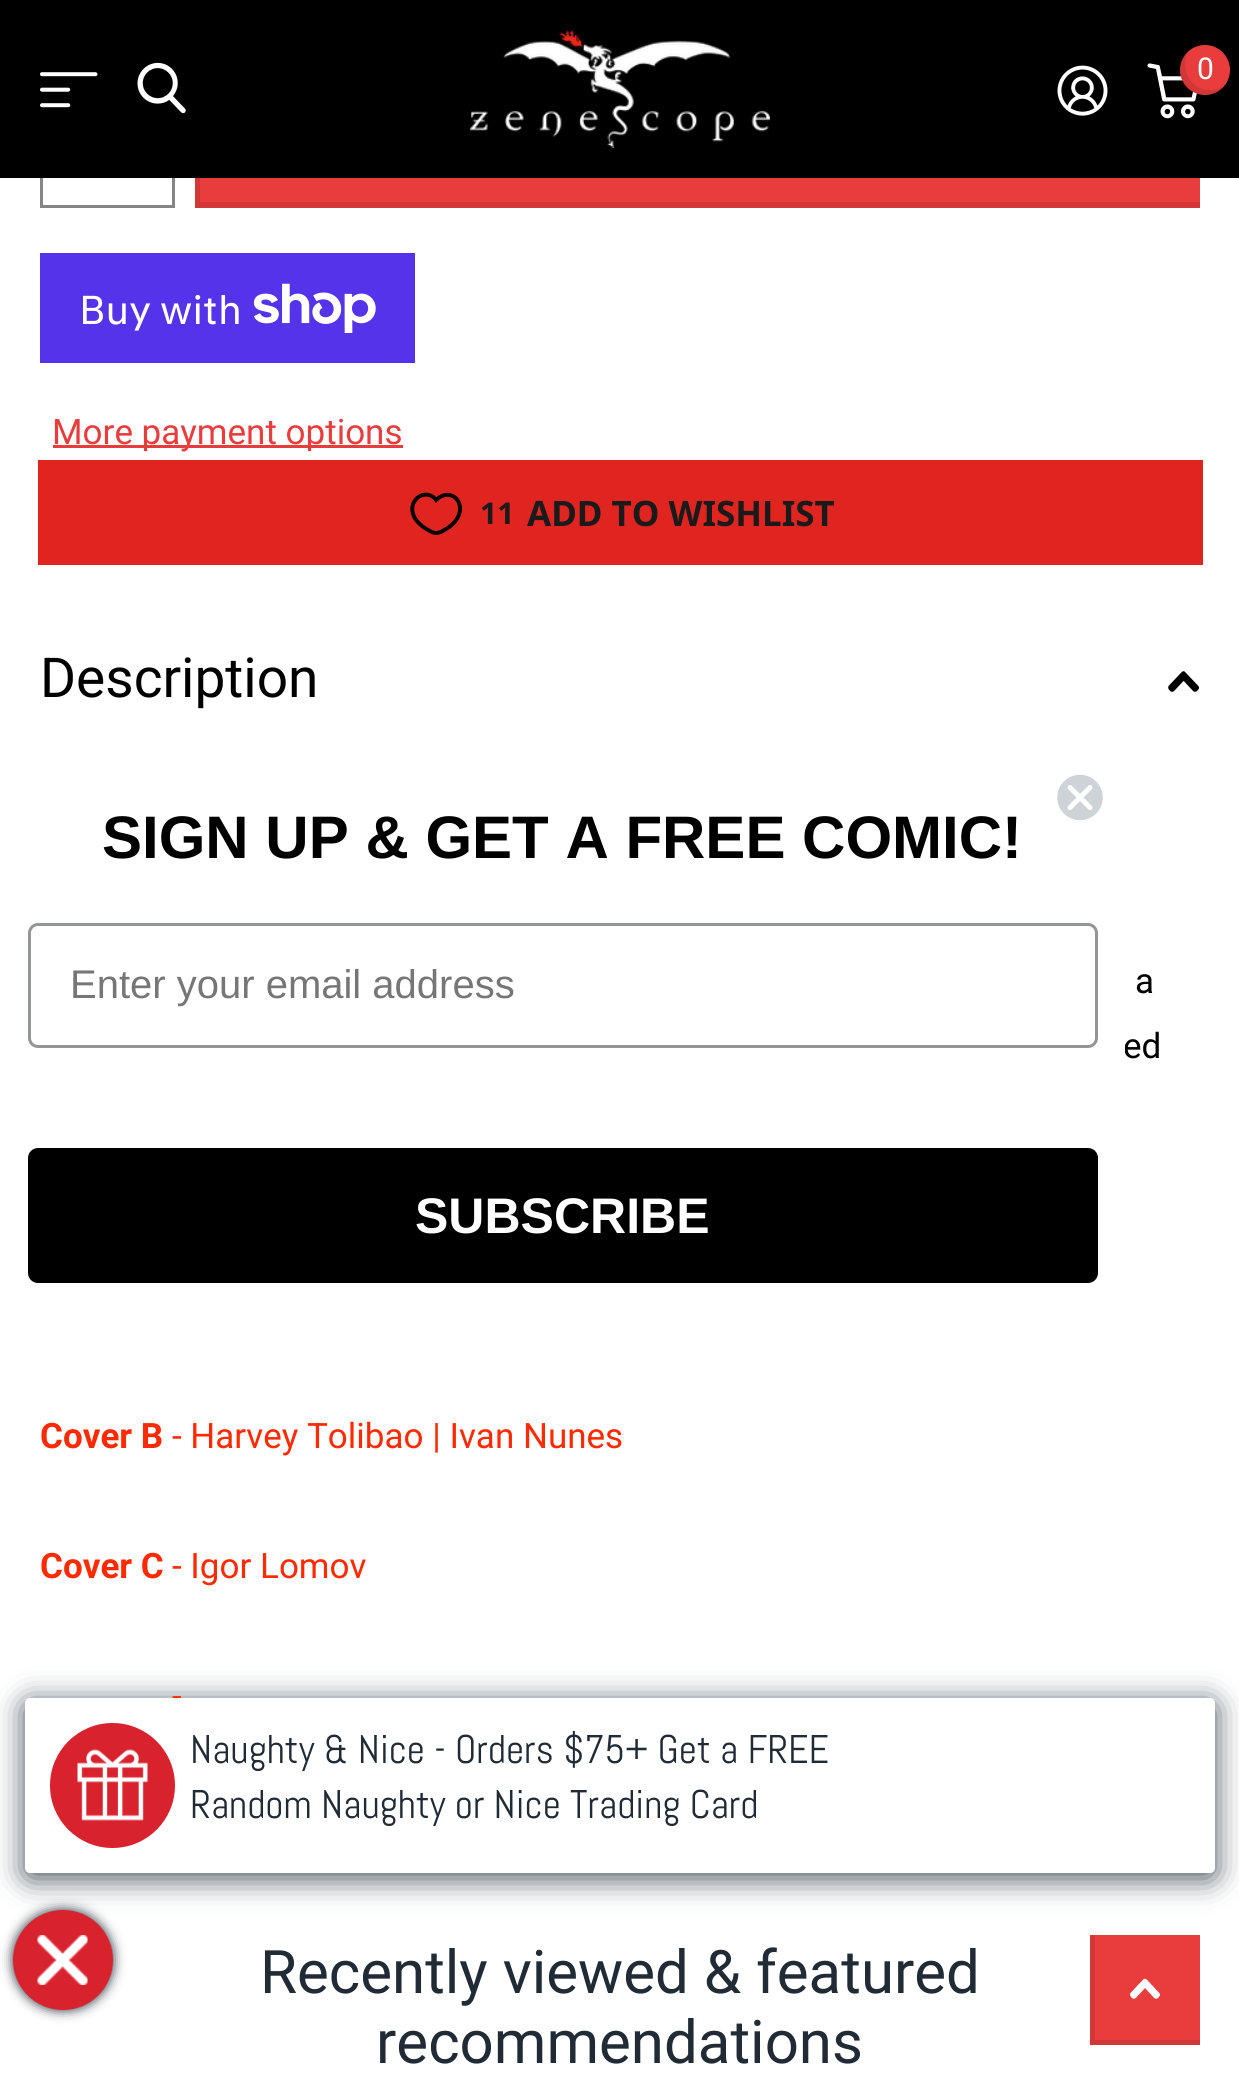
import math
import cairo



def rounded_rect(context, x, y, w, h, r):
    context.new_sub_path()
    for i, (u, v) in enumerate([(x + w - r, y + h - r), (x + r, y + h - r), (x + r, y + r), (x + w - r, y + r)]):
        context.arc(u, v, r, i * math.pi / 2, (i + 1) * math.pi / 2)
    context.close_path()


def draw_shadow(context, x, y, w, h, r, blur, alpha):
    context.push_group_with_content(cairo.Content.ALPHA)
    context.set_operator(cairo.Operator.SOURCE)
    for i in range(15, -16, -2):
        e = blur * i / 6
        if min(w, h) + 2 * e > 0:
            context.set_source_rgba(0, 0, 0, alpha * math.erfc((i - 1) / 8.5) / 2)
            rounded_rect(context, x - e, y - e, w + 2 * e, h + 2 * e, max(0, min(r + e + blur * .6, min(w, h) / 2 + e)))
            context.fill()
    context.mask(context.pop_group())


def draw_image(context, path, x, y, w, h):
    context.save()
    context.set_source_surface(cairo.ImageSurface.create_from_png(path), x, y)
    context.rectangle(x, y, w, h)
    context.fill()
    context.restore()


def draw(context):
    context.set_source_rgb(1, 1, 1)
    context.paint()
    context.rectangle(41.5, 99.5, 132, 107)
    context.set_source_rgb(133 / 255, 133 / 255, 133 / 255)
    context.set_line_width(3)
    context.stroke()
    context.set_source_rgb(233 / 255, 61 / 255, 61 / 255)
    context.rectangle(200, 178, 1000, 24)
    context.fill()
    context.save()
    context.rectangle(195, 98, 1005, 110)
    context.clip()
    context.set_source_rgb(210 / 255, 55 / 255, 55 / 255)
    context.set_fill_rule(cairo.FillRule.EVEN_ODD)
    context.new_path()
    context.move_to(-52, -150)
    context.line_to(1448, -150)
    context.line_to(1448, 455)
    context.line_to(-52, 455)
    context.close_path()
    context.move_to(200, 92)
    context.line_to(1205, 92)
    context.line_to(1205, 202)
    context.line_to(200, 202)
    context.close_path()
    context.fill()
    context.restore()
    context.set_source_rgb(0, 0, 0)
    context.rectangle(0, 0, 1239, 178)
    context.fill()
    draw_image(context, "images/1.png", 40, 72, 58, 36)
    draw_image(context, "images/2.png", 137, 62, 49, 52)
    draw_image(context, "images/3.png", 470, 30, 300, 118)
    draw_image(context, "images/4.png", 1057, 65, 51, 51)
    draw_image(context, "images/5.png", 1147, 63, 50, 56)
    context.set_source_rgb(233 / 255, 61 / 255, 61 / 255)
    context.arc(1205, 70, 25, 0, 2 * math.pi)
    context.fill()
    context.set_source_rgba(0, 0, 0, 0.1)
    context.new_path()
    context.move_to(1224, 86)
    context.curve_to(1220, 88, 1216, 90, 1210, 90)
    context.curve_to(1187, 90, 1180, 65, 1189, 50)
    context.curve_to(1178, 60, 1177, 77, 1187, 88)
    context.curve_to(1198, 98, 1215, 97, 1224, 86)
    context.close_path()
    context.fill()
    context.set_source_rgb(84 / 255, 51 / 255, 235 / 255)
    context.rectangle(40, 253, 375, 110)
    context.fill()
    draw_image(context, "images/6.png", 253, 283, 123, 50)
    context.set_source_rgb(233 / 255, 61 / 255, 61 / 255)
    context.rectangle(53, 445, 350, 3)
    context.fill()
    context.rectangle(39.5, 461.5, 1162, 102)
    context.set_source_rgb(224 / 255, 37 / 255, 33 / 255)
    context.stroke()
    context.rectangle(41, 463, 1159, 99)
    context.fill()
    context.new_path()
    context.move_to(435, 498.5)
    context.line_to(436, 500)
    context.curve_to(453.5, 483.5, 473, 510, 448.5, 527.5)
    context.curve_to(445, 529.5, 440.5, 533, 436, 533)
    context.curve_to(432, 533, 427.5, 529.5, 424, 527.5)
    context.curve_to(398.5, 509.5, 420.5, 485, 435, 498.5)
    context.close_path()
    context.set_source_rgb(0, 0, 0)
    context.set_line_width(3.9)
    context.stroke()
    draw_image(context, "images/7.png", 1168, 671, 31, 21)
    context.set_source_rgb(233 / 255, 61 / 255, 61 / 255)
    context.rectangle(1095, 1935, 105, 105)
    context.fill()
    context.save()
    context.rectangle(1090, 1935, 110, 110)
    context.clip()
    context.set_source_rgb(210 / 255, 55 / 255, 55 / 255)
    context.set_fill_rule(cairo.FillRule.EVEN_ODD)
    context.new_path()
    context.move_to(842, 1688)
    context.line_to(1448, 1688)
    context.line_to(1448, 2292)
    context.line_to(842, 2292)
    context.close_path()
    context.move_to(1095, 1930)
    context.line_to(1205, 1930)
    context.line_to(1205, 2040)
    context.line_to(1095, 2040)
    context.close_path()
    context.fill()
    context.restore()
    draw_image(context, "images/8.png", 1130, 1978, 30, 21)
    context.set_source_rgb(69 / 255, 79 / 255, 91 / 255)
    draw_shadow(context, 25, 1703, 1190, 175, 5, 15, 1)
    context.set_source_rgb(33 / 255, 43 / 255, 54 / 255)
    draw_shadow(context, 13, 1910, 100, 100, 50, 6, 1)
    context.set_source_rgb(216 / 255, 35 / 255, 47 / 255)
    context.arc(63, 1960, 50, 0, 2 * math.pi)
    context.fill()
    draw_image(context, "images/10.png", 37, 1935, 51, 50)
    context.select_font_face("Roboto")
    context.set_font_size(30)
    context.set_source_rgb(1, 1, 1)
    context.move_to(1197, 79)
    context.show_text("0")
    context.select_font_face("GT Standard")
    context.set_font_size(40)
    context.move_to(79, 324)
    context.show_text("Buy with")
    context.select_font_face("Roboto")
    context.set_font_size(35)
    context.set_source_rgb(233 / 255, 61 / 255, 61 / 255)
    context.move_to(52, 444)
    context.show_text("More payment options")
    context.select_font_face("Noto Sans", cairo.FontSlant.NORMAL, cairo.FontWeight.BOLD)
    context.set_font_size(30)
    context.set_source_rgb(26 / 255, 26 / 255, 26 / 255)
    context.move_to(480, 524)
    context.show_text("11")
    context.set_font_size(35)
    context.move_to(527, 526)
    context.show_text("ADD TO WISHLIST")
    context.select_font_face("Roboto")
    context.set_font_size(55)
    context.set_source_rgb(0, 0, 0)
    context.move_to(40, 697)
    context.show_text("Description")
    context.set_font_size(35)
    context.move_to(1135, 993)
    context.show_text("a")
    context.move_to(1123, 1058)
    context.show_text("ed")
    context.select_font_face("Roboto", cairo.FontSlant.NORMAL, cairo.FontWeight.BOLD)
    context.set_source_rgb(1, 42 / 255, 0)
    context.move_to(40, 1448)
    context.show_text("Cover B")
    context.select_font_face("Roboto")
    context.move_to(172, 1448)
    context.show_text("- Harvey Tolibao | Ivan Nunes")
    context.select_font_face("Roboto", cairo.FontSlant.NORMAL, cairo.FontWeight.BOLD)
    context.move_to(40, 1578)
    context.show_text("Cover C")
    context.select_font_face("Roboto")
    context.move_to(172, 1578)
    context.show_text("- Igor Lomov")
    context.move_to(172, 1708)
    context.show_text("-")
    context.set_font_size(60)
    context.set_source_rgb(33 / 255, 43 / 255, 54 / 255)
    context.move_to(260, 1993)
    context.show_text("Recently viewed & featured")
    context.move_to(376, 2063)
    context.show_text("recommendations")
    context.set_source_rgb(1, 1, 1)
    rounded_rect(context, 0, 753, 1125, 580, 5)
    context.fill()
    context.set_source_rgb(206 / 255, 211 / 255, 216 / 255)
    context.arc(1080, 797.5, 24, 0, 2 * math.pi)
    context.fill()
    context.save()
    context.rectangle(1055, 773, 50, 50)
    context.clip()
    context.arc(1080, 797.5, 24, 0, 2 * math.pi)
    context.set_source_rgb(1, 1, 1)
    context.set_line_width(2.5)
    context.stroke()
    context.restore()
    context.new_path()
    context.move_to(1070, 787.5)
    context.line_to(1090, 807.5)
    context.move_to(1070, 807.5)
    context.line_to(1090, 787.5)
    context.close_path()
    context.set_source_rgb(1, 1, 1)
    context.set_line_width(5)
    context.set_line_cap(cairo.LineCap.ROUND)
    context.set_line_join(cairo.LineJoin.ROUND)
    context.stroke()
    context.select_font_face("Liberation Sans", cairo.FontSlant.NORMAL, cairo.FontWeight.BOLD)
    context.set_source_rgb(0, 0, 0)
    context.move_to(102, 858)
    context.show_text("SIGN UP & GET A FREE COMIC!")
    rounded_rect(context, 29.5, 924.5, 1067, 122, 8.5)
    context.set_source_rgb(148 / 255, 149 / 255, 150 / 255)
    context.set_line_width(3)
    context.set_line_cap(cairo.LineCap.BUTT)
    context.set_line_join(cairo.LineJoin.MITER)
    context.stroke()
    context.select_font_face("Liberation Sans")
    context.set_font_size(40)
    context.set_source_rgb(118 / 255, 118 / 255, 118 / 255)
    context.move_to(70, 998)
    context.show_text("Enter your email address")
    context.set_source_rgb(0, 0, 0)
    rounded_rect(context, 28, 1148, 1070, 135, 10)
    context.fill()
    context.select_font_face("Liberation Sans", cairo.FontSlant.NORMAL, cairo.FontWeight.BOLD)
    context.set_font_size(50)
    context.set_source_rgb(1, 1, 1)
    context.move_to(415, 1233)
    context.show_text("SUBSCRIBE")
    rounded_rect(context, 25, 1698, 1190, 175, 5)
    context.fill()
    context.set_source_rgb(216 / 255, 35 / 255, 47 / 255)
    context.arc(112.5, 1785.5, 62.5, 0, 2 * math.pi)
    context.fill()
    draw_image(context, "images/9.png", 77, 1749, 71, 72)
    context.select_font_face("Abel")
    context.set_font_size(40)
    context.set_source_rgb(33 / 255, 43 / 255, 54 / 255)
    context.move_to(190, 1763)
    context.show_text("Naughty & Nice - Orders $75+ Get a FREE")
    context.move_to(190, 1818)
    context.show_text("Random Naughty or Nice Trading Card")


surface = cairo.ImageSurface(cairo.Format.RGB24, 1239, 2083)
context = cairo.Context(surface)
options = cairo.FontOptions()
options.set_hint_metrics(cairo.HintMetrics.OFF)
options.set_hint_style(cairo.HintStyle.NONE)
context.set_font_options(options)
context.set_miter_limit(4)
draw(context)
surface.write_to_png("out.png")
